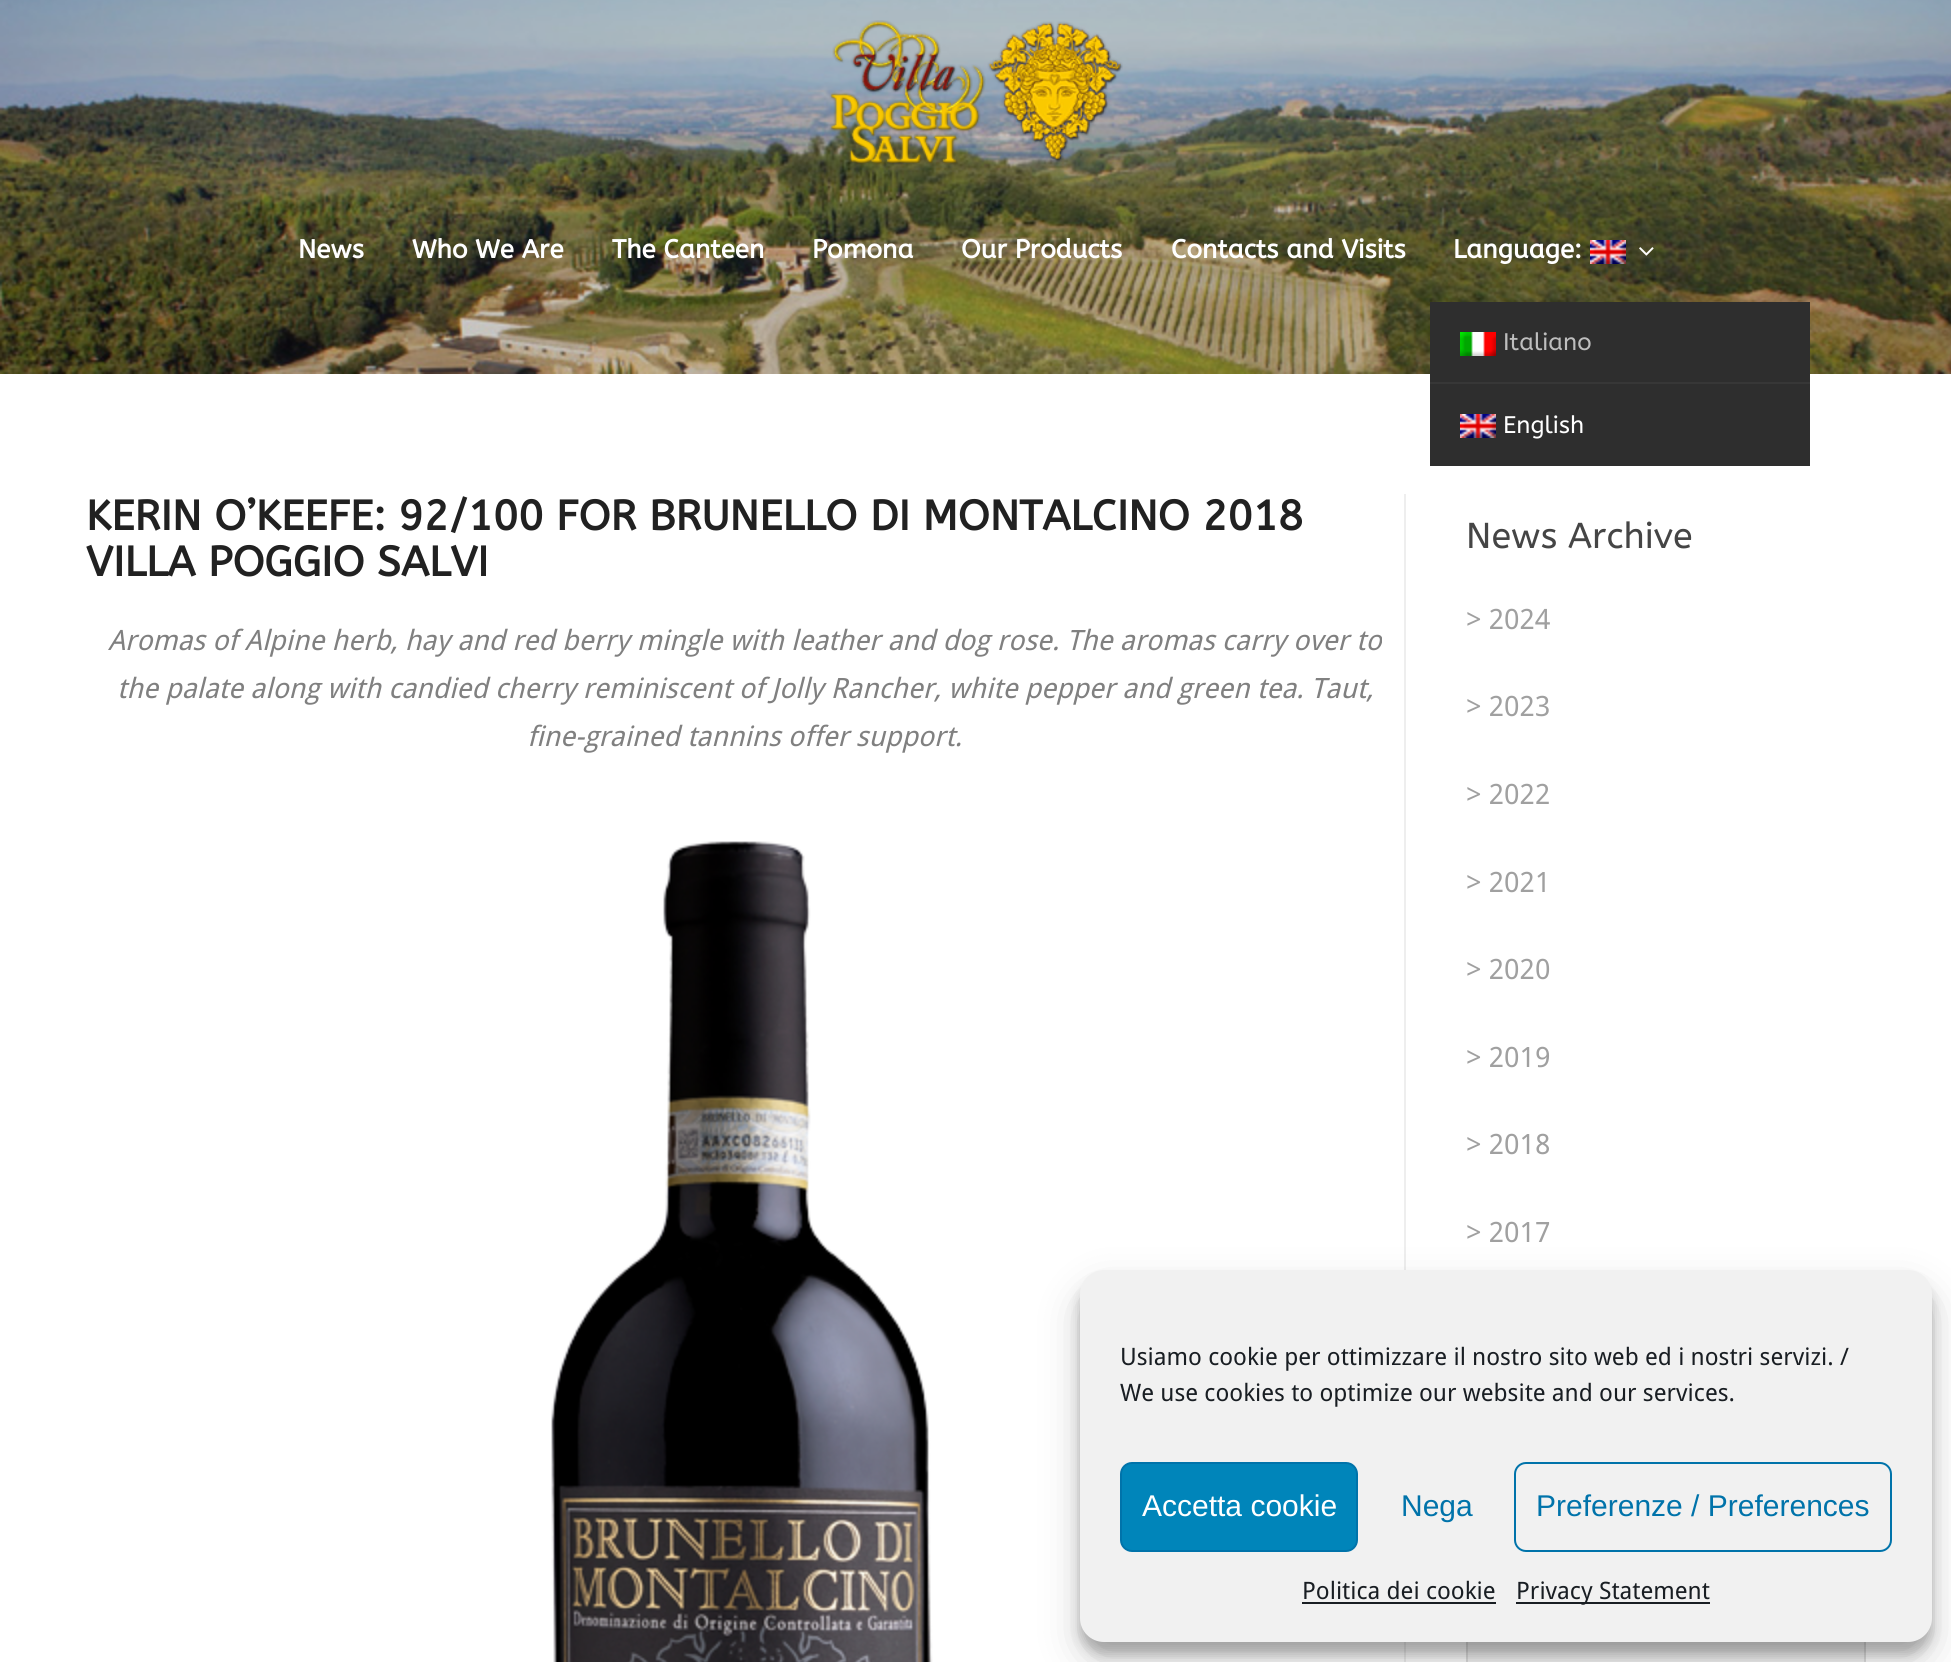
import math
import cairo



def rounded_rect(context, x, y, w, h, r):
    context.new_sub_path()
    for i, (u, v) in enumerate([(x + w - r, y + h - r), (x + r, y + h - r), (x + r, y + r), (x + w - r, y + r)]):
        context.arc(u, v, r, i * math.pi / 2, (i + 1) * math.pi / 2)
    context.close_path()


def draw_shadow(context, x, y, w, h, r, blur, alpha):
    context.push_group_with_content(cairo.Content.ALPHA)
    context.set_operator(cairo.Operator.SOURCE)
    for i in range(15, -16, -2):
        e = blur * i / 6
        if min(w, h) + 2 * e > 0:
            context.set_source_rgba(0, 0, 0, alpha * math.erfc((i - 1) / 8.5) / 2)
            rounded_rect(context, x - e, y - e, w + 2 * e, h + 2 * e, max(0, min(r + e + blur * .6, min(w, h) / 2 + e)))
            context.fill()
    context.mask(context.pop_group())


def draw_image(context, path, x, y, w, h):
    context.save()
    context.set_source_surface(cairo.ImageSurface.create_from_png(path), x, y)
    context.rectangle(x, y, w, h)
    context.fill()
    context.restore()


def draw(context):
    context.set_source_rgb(1, 1, 1)
    context.paint()
    draw_image(context, "images/1.png", 0, 0, 1951, 374)
    draw_image(context, "images/2.png", 829, 20, 294, 145)
    draw_image(context, "images/3.png", 1590, 240, 36, 24)
    draw_image(context, "images/4.png", 1639, 247, 15, 9)
    context.set_source_rgb(46 / 255, 46 / 255, 46 / 255)
    context.rectangle(1430, 302, 380, 80)
    context.fill()
    draw_image(context, "images/5.png", 1460, 332, 36, 24)
    context.rectangle(1430, 384, 380, 82)
    context.fill()
    context.set_source_rgb(55 / 255, 55 / 255, 55 / 255)
    context.rectangle(1430, 382, 380, 2)
    context.fill()
    draw_image(context, "images/3.png", 1460, 414, 36, 24)
    context.set_source_rgb(238 / 255, 238 / 255, 238 / 255)
    context.rectangle(1404, 494, 2, 1168)
    context.fill()
    draw_image(context, "images/6.png", 551, 841, 382, 821)
    context.set_source_rgb(244 / 255, 244 / 255, 244 / 255)
    context.rectangle(1468, 1642, 396, 20)
    context.fill()
    context.rectangle(1467, 1607, 398, 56)
    context.set_source_rgb(221 / 255, 221 / 255, 221 / 255)
    context.stroke()
    context.set_source_rgb(0, 0, 0)
    draw_shadow(context, 1080, 1282, 852, 372, 24, 6, 0.23)
    draw_shadow(context, 1080, 1290, 852, 372, 24, 20, 0.19)
    context.set_source_rgb(241 / 255, 241 / 255, 241 / 255)
    rounded_rect(context, 1080, 1270, 852, 372, 24)
    context.fill()
    context.set_source_rgb(0, 133 / 255, 186 / 255)
    rounded_rect(context, 1121, 1463, 236, 88, 11)
    context.fill_preserve()
    context.set_source_rgb(0, 115 / 255, 170 / 255)
    context.stroke()
    rounded_rect(context, 1515, 1463, 376, 88, 11)
    context.stroke()
    context.set_source_rgb(25 / 255, 30 / 255, 35 / 255)
    context.rectangle(1302, 1602, 194, 2)
    context.fill()
    context.rectangle(1516, 1602, 194, 2)
    context.fill()
    context.select_font_face("ABeeZee", cairo.FontSlant.NORMAL, cairo.FontWeight.BOLD)
    context.set_font_size(26)
    context.set_source_rgb(1, 1, 1)
    context.move_to(298, 258)
    context.show_text("News")
    context.move_to(412, 258)
    context.show_text("Who We Are")
    context.move_to(612, 258)
    context.show_text("The Canteen")
    context.move_to(812, 258)
    context.show_text("Pomona")
    context.move_to(961, 258)
    context.show_text("Our Products")
    context.move_to(1171, 258)
    context.show_text("Contacts and Visits")
    context.move_to(1453, 258)
    context.show_text("Language:")
    context.select_font_face("ABeeZee")
    context.set_font_size(24)
    context.set_source_rgb(190 / 255, 190 / 255, 190 / 255)
    context.move_to(1503, 350)
    context.show_text("Italiano")
    context.set_source_rgb(1, 1, 1)
    context.move_to(1503, 433)
    context.show_text("English")
    context.select_font_face("ABeeZee", cairo.FontSlant.NORMAL, cairo.FontWeight.BOLD)
    context.set_font_size(42)
    context.set_source_rgb(33 / 255, 33 / 255, 33 / 255)
    context.move_to(86, 530)
    context.show_text("KERIN O’KEEFE: 92/100 FOR BRUNELLO DI MONTALCINO 2018")
    context.move_to(86, 576)
    context.show_text("VILLA POGGIO SALVI")
    context.select_font_face("Droid Sans", cairo.FontSlant.ITALIC)
    context.set_font_size(28)
    context.set_source_rgb(128 / 255, 128 / 255, 128 / 255)
    context.move_to(108, 650)
    context.show_text("Aromas of Alpine herb, hay and red berry mingle with leather and dog rose. The aromas carry over to")
    context.move_to(117, 698)
    context.show_text("the palate along with candied cherry reminiscent of Jolly Rancher, white pepper and green tea. Taut,")
    context.move_to(527, 746)
    context.show_text("fine-grained tannins offer support.")
    context.select_font_face("ABeeZee")
    context.set_font_size(36)
    context.set_source_rgb(69 / 255, 69 / 255, 69 / 255)
    context.move_to(1466, 548)
    context.show_text("News Archive")
    context.select_font_face("Droid Sans")
    context.set_font_size(28)
    context.set_source_rgb(160 / 255, 160 / 255, 160 / 255)
    context.move_to(1466, 629)
    context.show_text("> 2024")
    context.move_to(1466, 716)
    context.show_text("> 2023")
    context.move_to(1466, 804)
    context.show_text("> 2022")
    context.move_to(1466, 892)
    context.show_text("> 2021")
    context.move_to(1466, 979)
    context.show_text("> 2020")
    context.move_to(1466, 1067)
    context.show_text("> 2019")
    context.move_to(1466, 1154)
    context.show_text("> 2018")
    context.move_to(1466, 1242)
    context.show_text("> 2017")
    context.set_font_size(24)
    context.set_source_rgb(25 / 255, 30 / 255, 35 / 255)
    context.move_to(1120, 1365)
    context.show_text("Usiamo cookie per ottimizzare il nostro sito web ed i nostri servizi. /")
    context.move_to(1120, 1401)
    context.show_text("We use cookies to optimize our website and our services.")
    context.select_font_face("Liberation Sans")
    context.set_font_size(30)
    context.set_source_rgb(1, 1, 1)
    context.move_to(1142, 1516)
    context.show_text("Accetta cookie")
    context.set_source_rgb(0, 115 / 255, 170 / 255)
    context.move_to(1401, 1516)
    context.show_text("Nega")
    context.move_to(1536, 1516)
    context.show_text("Preferenze / Preferences")
    context.select_font_face("Droid Sans")
    context.set_font_size(24)
    context.set_source_rgb(25 / 255, 30 / 255, 35 / 255)
    context.move_to(1302, 1599)
    context.show_text("Politica dei cookie")
    context.move_to(1516, 1599)
    context.show_text("Privacy Statement")


surface = cairo.ImageSurface(cairo.Format.RGB24, 1951, 1662)
context = cairo.Context(surface)
options = cairo.FontOptions()
options.set_hint_metrics(cairo.HintMetrics.OFF)
options.set_hint_style(cairo.HintStyle.NONE)
context.set_font_options(options)
context.set_miter_limit(4)
draw(context)
surface.write_to_png("out.png")
